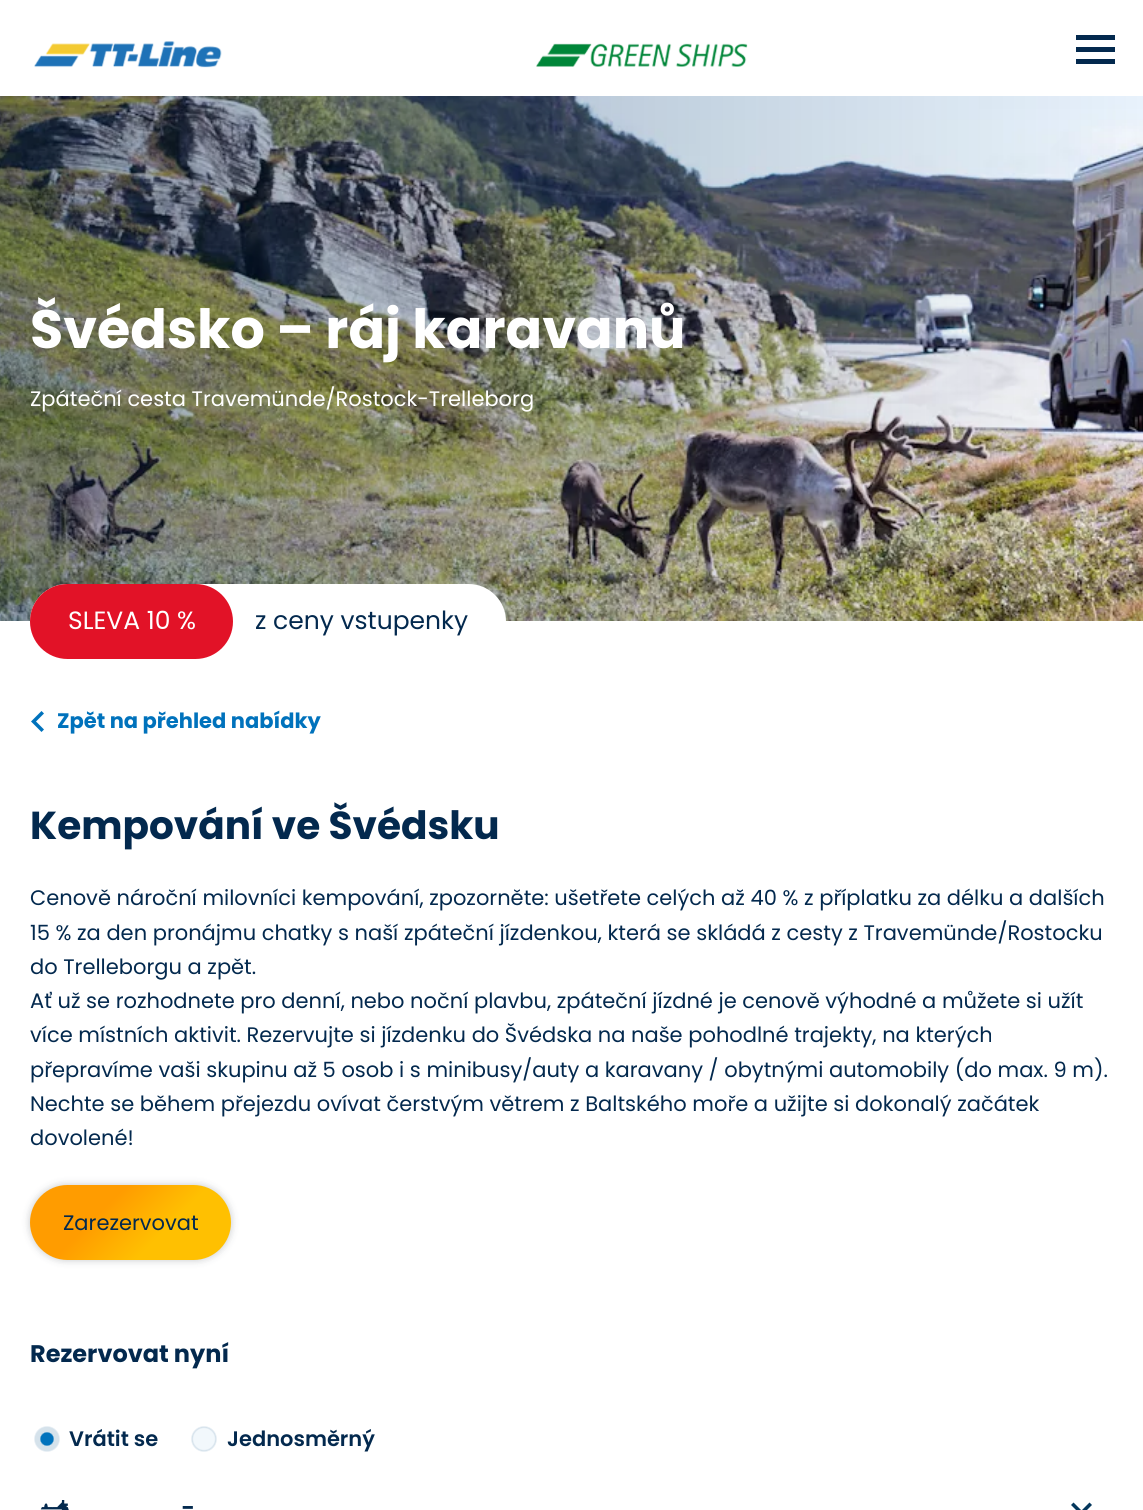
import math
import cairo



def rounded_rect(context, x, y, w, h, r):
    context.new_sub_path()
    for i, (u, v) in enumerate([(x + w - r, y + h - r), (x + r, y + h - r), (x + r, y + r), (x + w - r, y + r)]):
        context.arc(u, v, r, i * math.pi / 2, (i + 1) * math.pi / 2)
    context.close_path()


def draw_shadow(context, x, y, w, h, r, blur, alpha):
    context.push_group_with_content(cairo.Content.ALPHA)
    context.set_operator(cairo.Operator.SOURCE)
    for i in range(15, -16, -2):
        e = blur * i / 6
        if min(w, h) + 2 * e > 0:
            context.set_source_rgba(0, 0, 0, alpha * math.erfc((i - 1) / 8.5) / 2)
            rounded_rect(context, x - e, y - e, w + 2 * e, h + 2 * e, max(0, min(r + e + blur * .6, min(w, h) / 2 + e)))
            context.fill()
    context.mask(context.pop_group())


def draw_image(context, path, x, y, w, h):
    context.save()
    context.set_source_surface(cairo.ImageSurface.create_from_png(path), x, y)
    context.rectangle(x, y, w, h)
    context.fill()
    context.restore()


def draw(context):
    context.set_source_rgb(1, 1, 1)
    context.paint()
    draw_image(context, "images/1.png", 34, 41, 188, 27)
    draw_image(context, "images/2.png", 536, 43, 212, 24)
    context.set_source_rgb(3 / 255, 41 / 255, 78 / 255)
    context.rectangle(1076, 47, 39, 5)
    context.fill()
    context.rectangle(1076, 35, 39, 5)
    context.fill()
    context.rectangle(1076, 59, 39, 5)
    context.fill()
    draw_image(context, "images/3.png", 0, 96, 1143, 525)
    context.set_source_rgb(1, 1, 1)
    rounded_rect(context, 30, 584, 476, 75, 37.5)
    context.fill()
    context.set_source_rgb(226 / 255, 18 / 255, 39 / 255)
    rounded_rect(context, 30, 584, 203, 75, 37.5)
    context.fill()
    context.set_source_rgb(0, 114 / 255, 188 / 255)
    context.new_path()
    context.move_to(33.5, 719)
    context.line_to(41.5, 711)
    context.line_to(44, 713.5)
    context.line_to(36, 721.5)
    context.line_to(44, 729.5)
    context.line_to(41.5, 732)
    context.line_to(31, 721.5)
    context.close_path()
    context.fill()
    context.set_source_rgb(27 / 255, 38 / 255, 46 / 255)
    draw_shadow(context, 30, 1185, 201, 75, 37.5, 4, 0.25)
    gradient = cairo.LinearGradient(62, 1154, 200, 1292)
    gradient.add_color_stop_rgba(0, 1, 156 / 255, 0, 1)
    gradient.add_color_stop_rgba(0.35, 1, 156 / 255, 0, 1)
    gradient.add_color_stop_rgba(0.65, 1, 192 / 255, 1 / 255, 1)
    gradient.add_color_stop_rgba(1, 1, 192 / 255, 1 / 255, 1)
    context.set_source(gradient)
    rounded_rect(context, 30, 1185, 201, 75, 37.5)
    context.fill()
    gradient = cairo.RadialGradient(47, 1439, 0, 47, 1439, 23)
    gradient.add_color_stop_rgba(0.26, 0, 114 / 255, 188 / 255, 1)
    gradient.add_color_stop_rgba(0.32, 213 / 255, 226 / 255, 235 / 255, 1)
    gradient.add_color_stop_rgba(0.51, 213 / 255, 226 / 255, 235 / 255, 1)
    gradient.add_color_stop_rgba(0.58, 1, 1, 1, 1)
    context.set_source(gradient)
    context.rectangle(34, 1426, 26, 26)
    context.fill()
    gradient = cairo.RadialGradient(204, 1439, 0, 204, 1439, 23)
    gradient.add_color_stop_rgba(0.45, 242 / 255, 248 / 255, 252 / 255, 1)
    gradient.add_color_stop_rgba(0.51, 213 / 255, 226 / 255, 235 / 255, 1)
    gradient.add_color_stop_rgba(0.58, 1, 1, 1, 1)
    context.set_source(gradient)
    context.rectangle(191, 1426, 26, 26)
    context.fill()
    draw_image(context, "images/4.png", 40, 1500, 29, 10)
    context.set_source_rgb(4 / 255, 55 / 255, 92 / 255)
    context.set_fill_rule(cairo.FillRule.EVEN_ODD)
    context.new_path()
    context.move_to(1079, 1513)
    context.line_to(1071, 1505)
    context.line_to(1073.5, 1502.5)
    context.line_to(1081.5, 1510.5)
    context.line_to(1089.5, 1502.5)
    context.line_to(1092, 1505)
    context.line_to(1081.5, 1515.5)
    context.close_path()
    context.fill()
    context.select_font_face("Poppins", cairo.FontSlant.NORMAL, cairo.FontWeight.BOLD)
    context.set_font_size(54)
    context.set_source_rgb(1, 1, 1)
    context.move_to(30, 348)
    context.show_text("Švédsko – ráj karavanů")
    context.select_font_face("Poppins")
    context.set_font_size(21)
    context.move_to(30, 406)
    context.show_text("Zpáteční cesta Travemünde/Rostock-Trelleborg")
    context.set_font_size(25)
    context.move_to(68, 629)
    context.show_text("SLEVA 10 %")
    context.set_source_rgb(3 / 255, 41 / 255, 78 / 255)
    context.move_to(255, 629)
    context.show_text("z ceny vstupenky")
    context.select_font_face("Poppins", cairo.FontSlant.NORMAL, cairo.FontWeight.BOLD)
    context.set_font_size(21)
    context.set_source_rgb(0, 114 / 255, 188 / 255)
    context.move_to(57, 728)
    context.show_text("Zpět na přehled nabídky")
    context.set_font_size(39)
    context.set_source_rgb(3 / 255, 41 / 255, 78 / 255)
    context.move_to(30, 839)
    context.show_text("Kempování ve Švédsku")
    context.select_font_face("Poppins")
    context.set_font_size(21)
    context.move_to(30, 905)
    context.show_text("Cenově nároční milovníci kempování, zpozorněte: ušetřete celých až 40 % z příplatku za délku a dalších")
    context.move_to(30, 940)
    context.show_text("15 % za den pronájmu chatky s naší zpáteční jízdenkou, která se skládá z cesty z Travemünde/Rostocku")
    context.move_to(30, 974)
    context.show_text("do Trelleborgu a zpět.")
    context.move_to(30, 1008)
    context.show_text("Ať už se rozhodnete pro denní, nebo noční plavbu, zpáteční jízdné je cenově výhodné a můžete si užít")
    context.move_to(30, 1042)
    context.show_text("více místních aktivit. Rezervujte si jízdenku do Švédska na naše pohodlné trajekty, na kterých")
    context.move_to(30, 1077)
    context.show_text("přepravíme vaši skupinu až 5 osob i s minibusy/auty a karavany / obytnými automobily (do max. 9 m).")
    context.move_to(30, 1111)
    context.show_text("Nechte se během přejezdu ovívat čerstvým větrem z Baltského moře a užijte si dokonalý začátek")
    context.move_to(30, 1145)
    context.show_text("dovolené!")
    context.move_to(63, 1230)
    context.show_text("Zarezervovat")
    context.select_font_face("Poppins", cairo.FontSlant.NORMAL, cairo.FontWeight.BOLD)
    context.set_font_size(24)
    context.move_to(30, 1362)
    context.show_text("Rezervovat nyní")
    context.select_font_face("Poppins SemiBold")
    context.set_font_size(21)
    context.move_to(69, 1446)
    context.show_text("Vrátit se")
    context.move_to(227, 1446)
    context.show_text("Jednosměrný")
    context.set_font_size(24)
    context.move_to(181, 1516)
    context.show_text("-")


surface = cairo.ImageSurface(cairo.Format.RGB24, 1143, 1510)
context = cairo.Context(surface)
options = cairo.FontOptions()
options.set_hint_metrics(cairo.HintMetrics.OFF)
options.set_hint_style(cairo.HintStyle.NONE)
context.set_font_options(options)
context.set_miter_limit(4)
draw(context)
surface.write_to_png("out.png")
